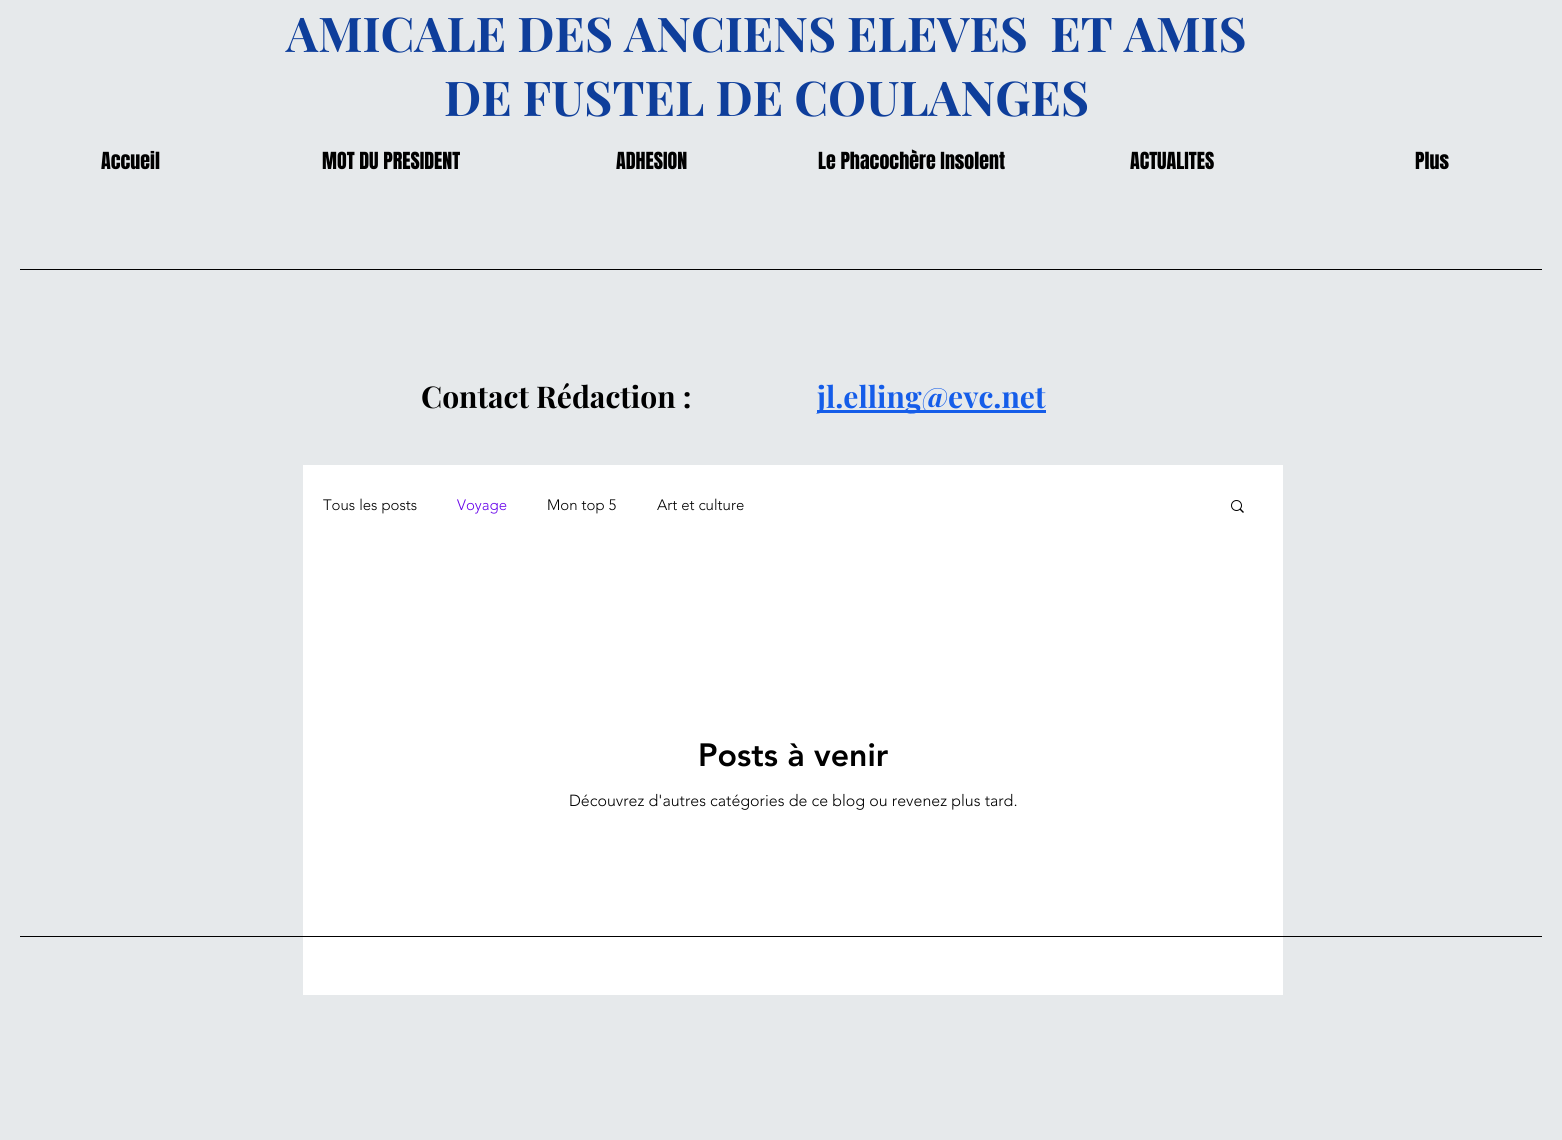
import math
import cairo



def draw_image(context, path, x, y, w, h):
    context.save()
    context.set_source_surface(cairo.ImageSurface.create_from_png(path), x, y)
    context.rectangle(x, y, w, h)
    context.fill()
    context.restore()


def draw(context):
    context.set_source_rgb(230 / 255, 233 / 255, 235 / 255)
    context.paint()
    context.set_source_rgb(0, 0, 0)
    context.rectangle(20, 269, 1522, 1)
    context.fill()
    context.set_source_rgb(21 / 255, 93 / 255, 233 / 255)
    context.rectangle(817, 410, 229, 3)
    context.fill()
    context.set_source_rgb(1, 1, 1)
    context.rectangle(303, 465, 980, 530)
    context.fill()
    draw_image(context, "images/1.png", 1231, 500, 13, 13)
    context.set_source_rgb(0, 0, 0)
    context.rectangle(20, 936, 1522, 1)
    context.fill()
    context.select_font_face("Playfair Display", cairo.FontSlant.NORMAL, cairo.FontWeight.BOLD)
    context.set_font_size(48)
    context.set_source_rgb(14 / 255, 62 / 255, 155 / 255)
    context.move_to(286, 52)
    context.show_text("AMICALE DES ANCIENS ELEVES  ET AMIS")
    context.move_to(444, 116)
    context.show_text("DE FUSTEL DE COULANGES")
    context.select_font_face("Anton")
    context.set_font_size(20)
    context.set_source_rgb(0, 0, 0)
    context.move_to(101, 169)
    context.show_text("Accueil")
    context.move_to(322, 169)
    context.show_text("MOT DU PRESIDENT")
    context.move_to(616, 169)
    context.show_text("ADHESION")
    context.move_to(818, 169)
    context.show_text("Le Phacochère Insolent")
    context.move_to(1130, 169)
    context.show_text("ACTUALITES")
    context.move_to(1415, 169)
    context.show_text("Plus")
    context.select_font_face("Playfair Display", cairo.FontSlant.NORMAL, cairo.FontWeight.BOLD)
    context.set_font_size(30)
    context.move_to(421, 408)
    context.show_text("Contact Rédaction :")
    context.set_source_rgb(21 / 255, 93 / 255, 233 / 255)
    context.move_to(817, 408)
    context.show_text("jl.elling@evc.net")
    context.select_font_face("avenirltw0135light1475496 Light")
    context.set_font_size(15)
    context.set_source_rgb(0, 0, 0)
    context.move_to(323, 510)
    context.show_text("Tous les posts")
    context.set_source_rgb(102 / 255, 0, 234 / 255)
    context.move_to(457, 510)
    context.show_text("Voyage")
    context.set_source_rgb(0, 0, 0)
    context.move_to(547, 510)
    context.show_text("Mon top 5")
    context.move_to(657, 510)
    context.show_text("Art et culture")
    context.select_font_face("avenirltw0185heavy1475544 Black")
    context.set_font_size(32)
    context.move_to(698, 766)
    context.show_text("Posts à venir")
    context.select_font_face("avenirltw0135light1475496 Light")
    context.set_font_size(16)
    context.move_to(569, 806)
    context.show_text("Découvrez d'autres catégories de ce blog ou revenez plus tard.")


surface = cairo.ImageSurface(cairo.Format.RGB24, 1562, 1140)
context = cairo.Context(surface)
options = cairo.FontOptions()
options.set_hint_metrics(cairo.HintMetrics.OFF)
options.set_hint_style(cairo.HintStyle.NONE)
context.set_font_options(options)
context.set_miter_limit(4)
draw(context)
surface.write_to_png("out.png")
